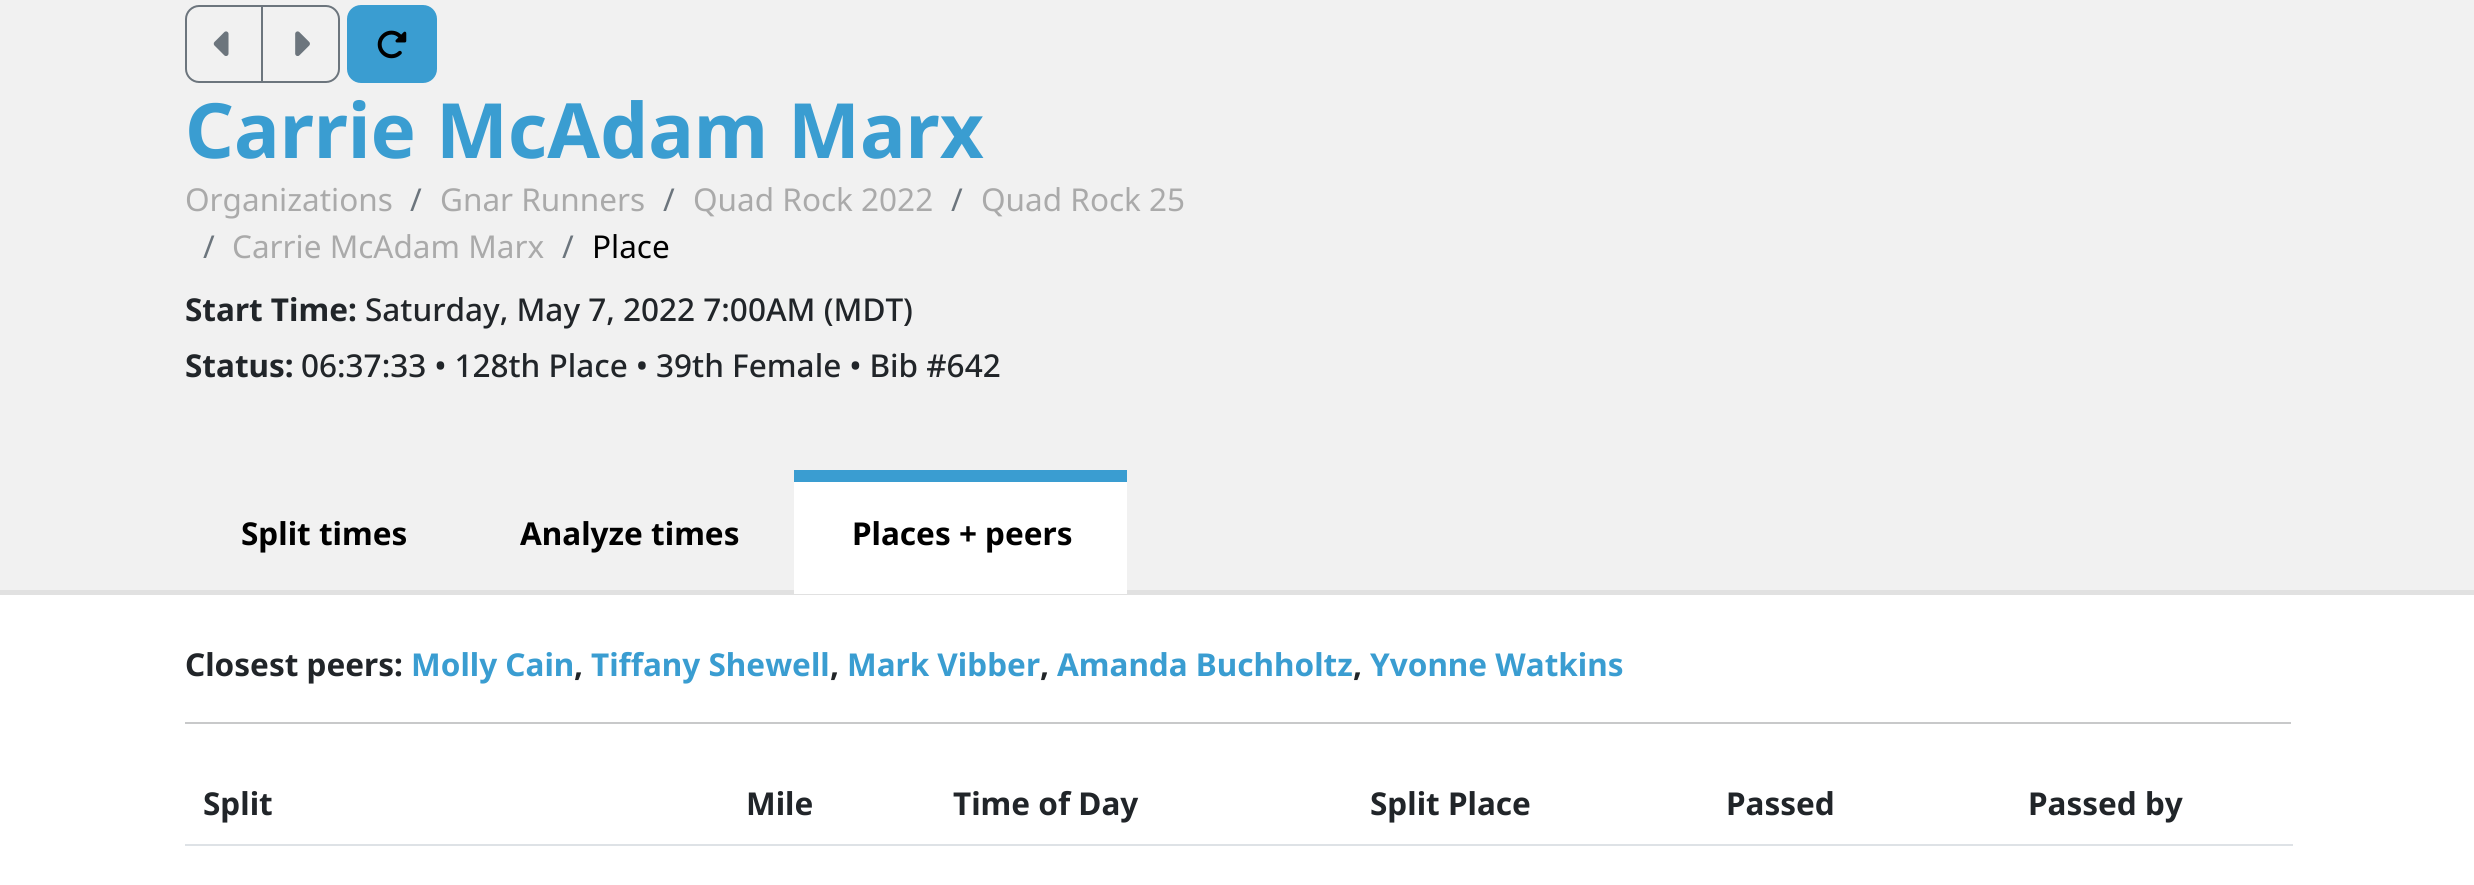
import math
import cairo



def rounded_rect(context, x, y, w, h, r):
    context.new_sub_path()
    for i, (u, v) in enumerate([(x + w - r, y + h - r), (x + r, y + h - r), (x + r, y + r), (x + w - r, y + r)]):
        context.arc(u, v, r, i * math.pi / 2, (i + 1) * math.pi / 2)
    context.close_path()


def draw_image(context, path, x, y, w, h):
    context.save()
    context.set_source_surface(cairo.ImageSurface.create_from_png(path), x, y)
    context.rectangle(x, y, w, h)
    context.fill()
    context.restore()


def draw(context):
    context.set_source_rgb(1, 1, 1)
    context.paint()
    context.set_source_rgb(241 / 255, 241 / 255, 241 / 255)
    context.rectangle(0, 0, 2474, 590)
    context.fill()
    context.set_source_rgb(225 / 255, 225 / 255, 225 / 255)
    context.rectangle(0, 590, 2474, 5)
    context.fill()
    context.new_path()
    context.move_to(199, 6)
    context.line_to(262, 6)
    context.line_to(262, 82)
    context.line_to(199, 82)
    context.curve_to(192, 82, 186, 76, 186, 69)
    context.line_to(186, 19)
    context.curve_to(186, 12, 192, 6, 199, 6)
    context.close_path()
    context.set_source_rgb(108 / 255, 117 / 255, 125 / 255)
    context.stroke()
    draw_image(context, "images/1.png", 213, 31, 16, 25)
    context.new_path()
    context.move_to(262, 6)
    context.line_to(326, 6)
    context.curve_to(333, 6, 339, 12, 339, 19)
    context.line_to(339, 69)
    context.curve_to(339, 76, 333, 82, 326, 82)
    context.line_to(262, 82)
    context.close_path()
    context.stroke()
    draw_image(context, "images/2.png", 295, 31, 15, 25)
    context.set_source_rgb(58 / 255, 157 / 255, 209 / 255)
    rounded_rect(context, 348, 6, 88, 76, 13)
    context.fill_preserve()
    context.stroke()
    draw_image(context, "images/3.png", 377, 30, 30, 29)
    context.set_source_rgb(1, 1, 1)
    context.rectangle(794, 482, 333, 112)
    context.fill()
    context.set_source_rgb(58 / 255, 157 / 255, 209 / 255)
    context.rectangle(794, 470, 333, 12)
    context.fill()
    context.set_source_rgb(200 / 255, 201 / 255, 202 / 255)
    context.rectangle(185, 722, 2106, 2)
    context.fill()
    context.set_source_rgb(222 / 255, 226 / 255, 230 / 255)
    context.rectangle(185, 844, 2108, 2)
    context.fill()
    context.select_font_face("Noto Sans", cairo.FontSlant.NORMAL, cairo.FontWeight.BOLD)
    context.set_font_size(76.25)
    context.set_source_rgb(58 / 255, 157 / 255, 209 / 255)
    context.move_to(185, 158)
    context.show_text("Carrie McAdam Marx")
    context.select_font_face("Noto Sans")
    context.set_font_size(31.5)
    context.set_source_rgb(170 / 255, 170 / 255, 170 / 255)
    context.move_to(185, 211)
    context.show_text("Organizations")
    context.set_source_rgb(108 / 255, 117 / 255, 125 / 255)
    context.move_to(410, 211)
    context.show_text("/")
    context.set_source_rgb(170 / 255, 170 / 255, 170 / 255)
    context.move_to(440, 211)
    context.show_text("Gnar Runners")
    context.set_source_rgb(108 / 255, 117 / 255, 125 / 255)
    context.move_to(663, 211)
    context.show_text("/")
    context.set_source_rgb(170 / 255, 170 / 255, 170 / 255)
    context.move_to(693, 211)
    context.show_text("Quad Rock 2022")
    context.set_source_rgb(108 / 255, 117 / 255, 125 / 255)
    context.move_to(951, 211)
    context.show_text("/")
    context.set_source_rgb(170 / 255, 170 / 255, 170 / 255)
    context.move_to(981, 211)
    context.show_text("Quad Rock 25")
    context.set_source_rgb(108 / 255, 117 / 255, 125 / 255)
    context.move_to(203, 258)
    context.show_text("/")
    context.set_source_rgb(170 / 255, 170 / 255, 170 / 255)
    context.move_to(232, 258)
    context.show_text("Carrie McAdam Marx")
    context.set_source_rgb(108 / 255, 117 / 255, 125 / 255)
    context.move_to(562, 258)
    context.show_text("/")
    context.set_source_rgb(0, 0, 0)
    context.move_to(592, 258)
    context.show_text("Place")
    context.select_font_face("Noto Sans", cairo.FontSlant.NORMAL, cairo.FontWeight.BOLD)
    context.set_source_rgb(33 / 255, 37 / 255, 41 / 255)
    context.move_to(185, 321)
    context.show_text("Start Time:")
    context.select_font_face("Noto Sans Medium")
    context.move_to(365, 321)
    context.show_text("Saturday, May 7, 2022 7:00AM (MDT)")
    context.select_font_face("Noto Sans", cairo.FontSlant.NORMAL, cairo.FontWeight.BOLD)
    context.move_to(185, 377)
    context.show_text("Status:")
    context.select_font_face("Noto Sans Medium")
    context.move_to(301, 377)
    context.show_text("06:37:33 • 128th Place • 39th Female • Bib #642")
    context.select_font_face("Noto Sans", cairo.FontSlant.NORMAL, cairo.FontWeight.BOLD)
    context.set_source_rgb(0, 0, 0)
    context.move_to(241, 545)
    context.show_text("Split times")
    context.move_to(520, 545)
    context.show_text("Analyze times")
    context.move_to(852, 545)
    context.show_text("Places + peers")
    context.set_source_rgb(33 / 255, 37 / 255, 41 / 255)
    context.move_to(185, 676)
    context.show_text("Closest peers:")
    context.set_source_rgb(58 / 255, 157 / 255, 209 / 255)
    context.move_to(411, 676)
    context.show_text("Molly Cain")
    context.set_source_rgb(33 / 255, 37 / 255, 41 / 255)
    context.move_to(574, 676)
    context.show_text(",")
    context.set_source_rgb(58 / 255, 157 / 255, 209 / 255)
    context.move_to(591, 676)
    context.show_text("Tiffany Shewell")
    context.set_source_rgb(33 / 255, 37 / 255, 41 / 255)
    context.move_to(830, 676)
    context.show_text(",")
    context.set_source_rgb(58 / 255, 157 / 255, 209 / 255)
    context.move_to(847, 676)
    context.show_text("Mark Vibber")
    context.set_source_rgb(33 / 255, 37 / 255, 41 / 255)
    context.move_to(1040, 676)
    context.show_text(",")
    context.set_source_rgb(58 / 255, 157 / 255, 209 / 255)
    context.move_to(1057, 676)
    context.show_text("Amanda Buchholtz")
    context.set_source_rgb(33 / 255, 37 / 255, 41 / 255)
    context.move_to(1353, 676)
    context.show_text(",")
    context.set_source_rgb(58 / 255, 157 / 255, 209 / 255)
    context.move_to(1370, 676)
    context.show_text("Yvonne Watkins")
    context.set_source_rgb(33 / 255, 37 / 255, 41 / 255)
    context.move_to(203, 815)
    context.show_text("Split")
    context.move_to(746, 815)
    context.show_text("Mile")
    context.move_to(953, 815)
    context.show_text("Time of Day")
    context.move_to(1370, 815)
    context.show_text("Split Place")
    context.move_to(1726, 815)
    context.show_text("Passed")
    context.move_to(2028, 815)
    context.show_text("Passed by")


surface = cairo.ImageSurface(cairo.Format.RGB24, 2474, 885)
context = cairo.Context(surface)
options = cairo.FontOptions()
options.set_hint_metrics(cairo.HintMetrics.OFF)
options.set_hint_style(cairo.HintStyle.NONE)
context.set_font_options(options)
context.set_miter_limit(4)
draw(context)
surface.write_to_png("out.png")
